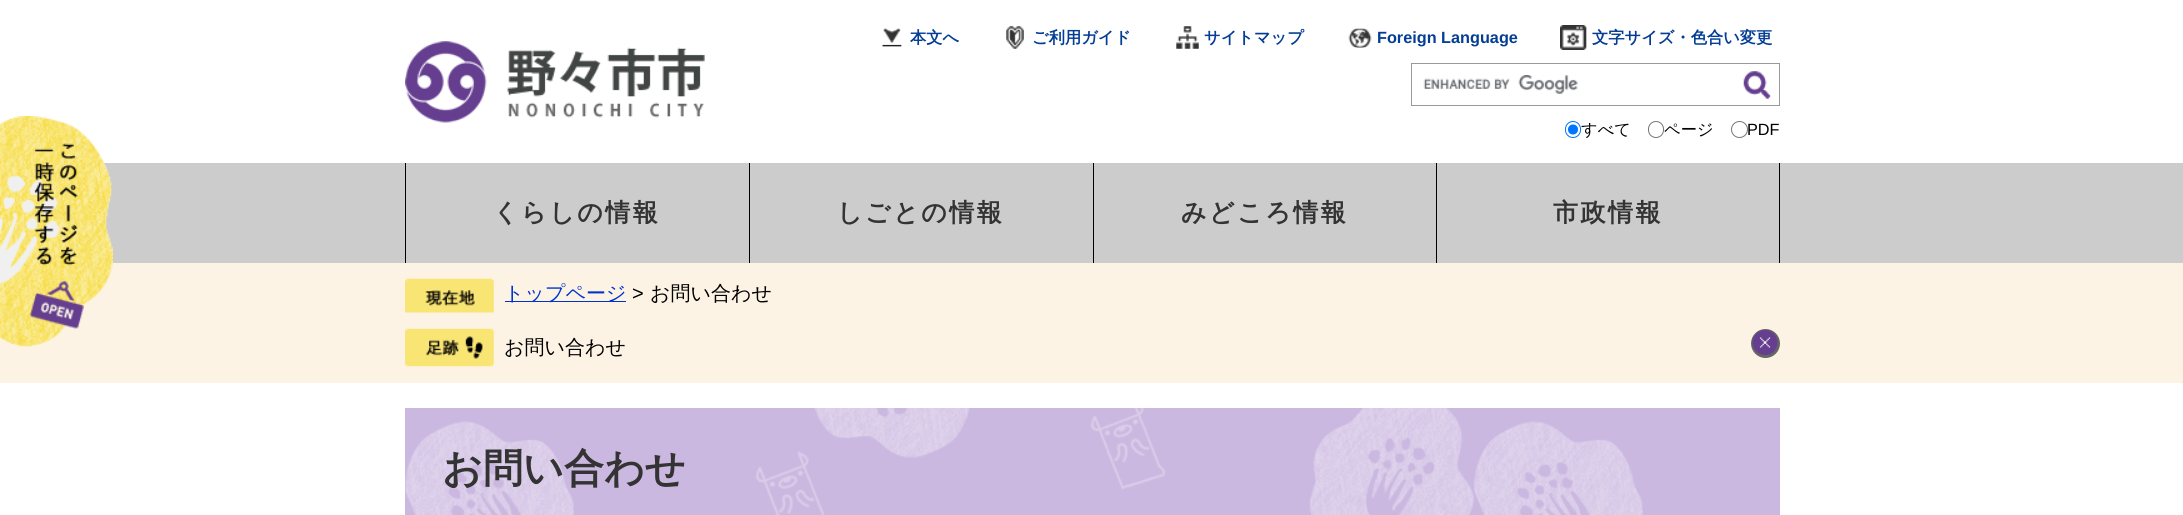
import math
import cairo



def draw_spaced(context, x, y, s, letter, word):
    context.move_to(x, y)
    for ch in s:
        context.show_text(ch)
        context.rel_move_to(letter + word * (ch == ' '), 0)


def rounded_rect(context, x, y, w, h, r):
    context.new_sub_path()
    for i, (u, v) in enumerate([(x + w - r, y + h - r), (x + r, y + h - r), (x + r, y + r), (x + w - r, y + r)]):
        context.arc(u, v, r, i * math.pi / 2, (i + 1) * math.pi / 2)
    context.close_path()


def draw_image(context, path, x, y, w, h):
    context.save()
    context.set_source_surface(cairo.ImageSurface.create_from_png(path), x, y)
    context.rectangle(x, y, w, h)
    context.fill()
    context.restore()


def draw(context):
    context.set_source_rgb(1, 1, 1)
    context.paint()
    context.set_source_rgb(204 / 255, 204 / 255, 204 / 255)
    context.rectangle(45, 163, 2138, 100)
    context.fill()
    context.set_source_rgb(253 / 255, 243 / 255, 229 / 255)
    context.rectangle(65, 263, 2118, 62)
    context.fill()
    context.rectangle(0, 325, 2183, 58)
    context.fill()
    draw_image(context, "images/1.png", 0, 116, 113, 231)
    draw_image(context, "images/2.png", 405, 41, 300, 82)
    draw_image(context, "images/3.png", 882, 28, 20, 19)
    draw_image(context, "images/4.png", 1006, 26, 18, 23)
    draw_image(context, "images/5.png", 1176, 26, 23, 23)
    draw_image(context, "images/6.png", 1348, 28, 24, 20)
    draw_image(context, "images/7.png", 1560, 25, 27, 25)
    draw_image(context, "images/8.png", 1423, 75, 155, 19)
    context.set_source_rgb(153 / 255, 153 / 255, 153 / 255)
    context.rectangle(1411, 63, 369, 1)
    context.fill()
    context.rectangle(1411, 105, 325, 1)
    context.fill()
    context.rectangle(1411, 63, 1, 43)
    context.fill()
    draw_image(context, "images/9.png", 1743, 71, 28, 28)
    context.rectangle(1779, 63, 1, 43)
    context.fill()
    context.rectangle(1736, 105, 44, 1)
    context.fill()
    rounded_rect(context, 1565.5, 121.5, 15, 16, 7.5)
    context.set_source_rgb(0, 117 / 255, 1)
    context.set_line_width(1)
    context.stroke()
    context.arc(1573, 129.5, 5, 0, 2 * math.pi)
    context.fill()
    rounded_rect(context, 1648.5, 121.5, 15, 16, 7.5)
    context.set_source_rgb(118 / 255, 118 / 255, 118 / 255)
    context.stroke()
    context.arc(1739.5, 129.5, 8, 0, 2 * math.pi)
    context.stroke()
    context.set_source_rgb(0, 0, 0)
    context.rectangle(405, 163, 1, 100)
    context.fill()
    context.rectangle(749, 163, 1, 100)
    context.fill()
    context.rectangle(1093, 163, 1, 100)
    context.fill()
    context.rectangle(1779, 163, 1, 100)
    context.fill()
    context.rectangle(1436, 163, 1, 100)
    context.fill()
    draw_image(context, "images/10.png", 405, 278, 89, 35)
    context.set_source_rgb(0, 51 / 255, 204 / 255)
    context.rectangle(505, 301, 121, 1)
    context.fill()
    draw_image(context, "images/11.png", 405, 328, 89, 39)
    context.set_source_rgb(102 / 255, 102 / 255, 102 / 255)
    context.arc(1765.5, 343.5, 14.5, 0, 2 * math.pi)
    context.fill()
    draw_image(context, "images/12.png", 1752, 330, 26, 25)
    context.set_source_rgb(203 / 255, 184 / 255, 224 / 255)
    context.rectangle(405, 408, 1375, 107)
    context.fill()
    draw_image(context, "images/13.png", 405, 408, 1238, 107)
    context.select_font_face("WenQuanYi Zen Hei", cairo.FontSlant.NORMAL, cairo.FontWeight.BOLD)
    context.set_font_size(16.25)
    context.set_source_rgb(4 / 255, 62 / 255, 148 / 255)
    context.move_to(910, 43)
    context.show_text("本文へ")
    context.move_to(1032, 43)
    context.show_text("ご利用ガイド")
    context.move_to(1204, 43)
    context.show_text("サイトマップ")
    context.select_font_face("Liberation Sans", cairo.FontSlant.NORMAL, cairo.FontWeight.BOLD)
    context.move_to(1377, 43)
    context.show_text("Foreign Language")
    context.select_font_face("WenQuanYi Zen Hei", cairo.FontSlant.NORMAL, cairo.FontWeight.BOLD)
    context.move_to(1592, 43)
    context.show_text("文字サイズ・色合い変更")
    context.select_font_face("WenQuanYi Zen Hei Medium")
    context.set_source_rgb(0, 0, 0)
    context.move_to(1581, 135)
    context.show_text("すべて")
    context.move_to(1664, 135)
    context.show_text("ページ")
    context.select_font_face("Liberation Sans")
    context.move_to(1747, 135)
    context.show_text("PDF")
    context.select_font_face("WenQuanYi Zen Hei", cairo.FontSlant.NORMAL, cairo.FontWeight.BOLD)
    context.set_font_size(25)
    context.set_source_rgb(51 / 255, 51 / 255, 51 / 255)
    draw_spaced(context, 493, 221, "くらしの情報", 2.5, 0)
    draw_spaced(context, 837, 221, "しごとの情報", 2.5, 0)
    draw_spaced(context, 1181, 221, "みどころ情報", 2.5, 0)
    draw_spaced(context, 1553, 221, "市政情報", 2.5, 0)
    context.select_font_face("WenQuanYi Zen Hei Medium")
    context.set_font_size(20)
    context.set_source_rgb(0, 51 / 255, 204 / 255)
    context.move_to(504, 300)
    context.show_text("トップページ")
    context.select_font_face("Liberation Sans")
    context.set_source_rgb(0, 0, 0)
    context.move_to(632, 300)
    context.show_text(">")
    context.select_font_face("WenQuanYi Zen Hei Medium")
    context.move_to(650, 300)
    context.show_text("お問い合わせ")
    context.move_to(504, 354)
    context.show_text("お問い合わせ")
    context.select_font_face("WenQuanYi Zen Hei", cairo.FontSlant.NORMAL, cairo.FontWeight.BOLD)
    context.set_font_size(40)
    context.set_source_rgb(51 / 255, 51 / 255, 51 / 255)
    context.move_to(442, 482)
    context.show_text("お問い合わせ")


surface = cairo.ImageSurface(cairo.Format.RGB24, 2183, 515)
context = cairo.Context(surface)
options = cairo.FontOptions()
options.set_hint_metrics(cairo.HintMetrics.OFF)
options.set_hint_style(cairo.HintStyle.NONE)
context.set_font_options(options)
context.set_miter_limit(4)
draw(context)
surface.write_to_png("out.png")
